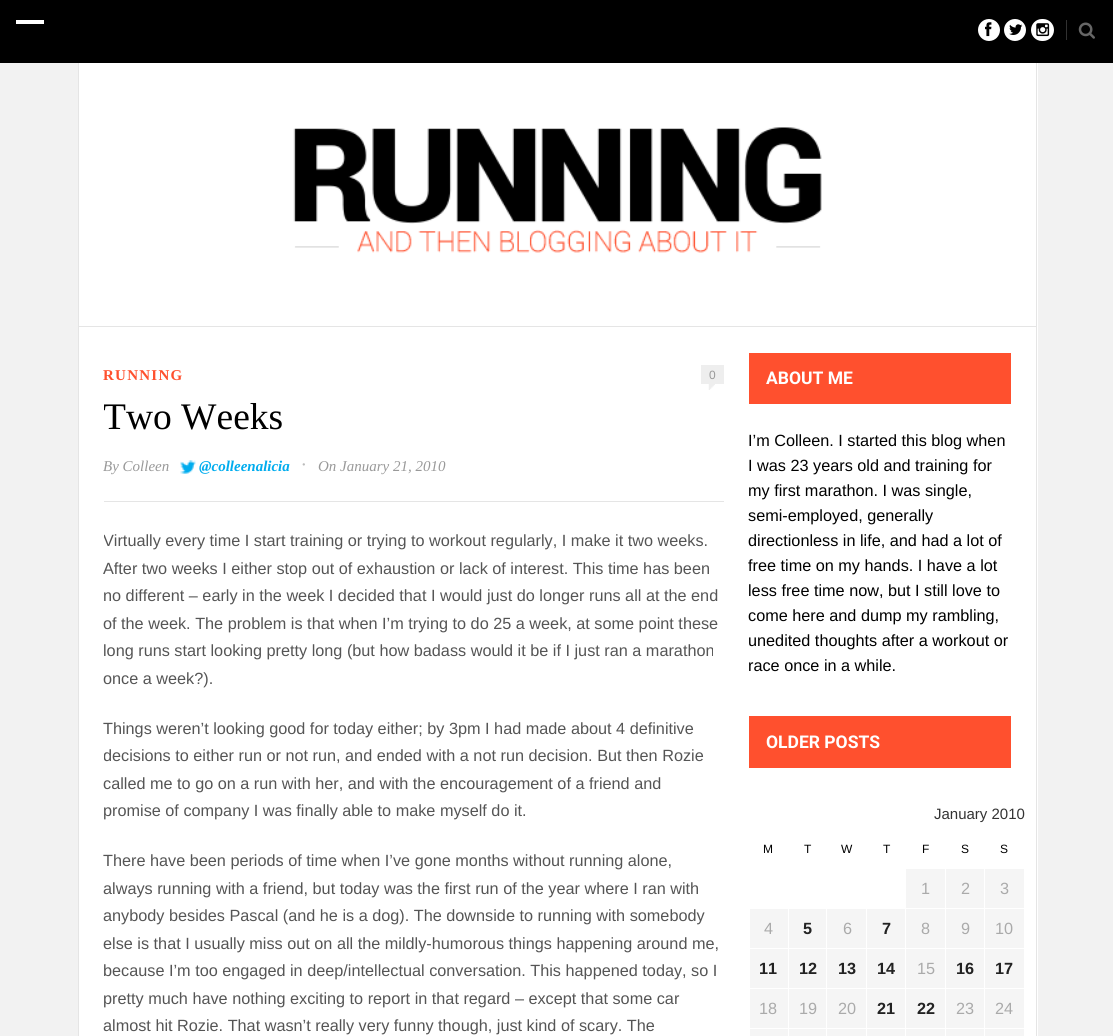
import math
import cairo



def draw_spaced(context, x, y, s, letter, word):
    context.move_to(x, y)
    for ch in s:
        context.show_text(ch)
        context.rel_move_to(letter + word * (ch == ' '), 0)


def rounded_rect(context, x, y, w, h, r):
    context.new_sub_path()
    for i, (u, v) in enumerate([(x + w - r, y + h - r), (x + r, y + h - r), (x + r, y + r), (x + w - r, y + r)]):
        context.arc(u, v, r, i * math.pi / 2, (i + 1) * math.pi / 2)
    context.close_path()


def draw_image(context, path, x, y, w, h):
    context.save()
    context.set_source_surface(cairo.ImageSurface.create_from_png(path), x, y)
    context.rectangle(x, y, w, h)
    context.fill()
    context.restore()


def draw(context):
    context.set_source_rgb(242 / 255, 242 / 255, 242 / 255)
    context.paint()
    context.set_source_rgb(0, 0, 0)
    context.rectangle(0, 0, 1113, 63)
    context.fill()
    context.set_source_rgb(1, 1, 1)
    context.rectangle(16, 20, 28, 4)
    context.fill()
    context.arc(989, 30, 11, 0, 2 * math.pi)
    context.fill()
    draw_image(context, "images/1.png", 985, 22, 7, 15)
    context.arc(1015, 30, 11, 0, 2 * math.pi)
    context.fill()
    draw_image(context, "images/2.png", 1009, 24, 14, 11)
    rounded_rect(context, 1031, 19, 23, 22, 11)
    context.fill()
    draw_image(context, "images/3.png", 1036, 23, 14, 14)
    context.set_source_rgb(49 / 255, 49 / 255, 49 / 255)
    context.rectangle(1066, 20, 1, 20)
    context.fill()
    draw_image(context, "images/4.png", 1078, 22, 17, 17)
    context.set_source_rgb(1, 1, 1)
    context.rectangle(79, 63, 959, 973)
    context.fill()
    context.set_source_rgb(229 / 255, 229 / 255, 229 / 255)
    context.rectangle(1036, 63, 1, 973)
    context.fill()
    context.rectangle(78, 63, 1, 973)
    context.fill()
    context.rectangle(79, 326, 957, 1)
    context.fill()
    draw_image(context, "images/5.png", 293, 127, 529, 126)
    context.rectangle(104, 501, 620, 1)
    context.fill()
    draw_image(context, "images/6.png", 708, 384, 7, 6)
    context.set_source_rgb(238 / 255, 238 / 255, 238 / 255)
    context.rectangle(701, 365, 23, 19)
    context.fill()
    draw_image(context, "images/7.png", 180, 460, 16, 14)
    context.set_source_rgb(1, 80 / 255, 46 / 255)
    context.rectangle(749, 353, 262, 51)
    context.fill()
    context.rectangle(749, 716, 262, 52)
    context.fill()
    context.set_source_rgb(245 / 255, 245 / 255, 245 / 255)
    context.rectangle(906, 869, 39, 39)
    context.fill()
    context.rectangle(946, 869, 38, 39)
    context.fill()
    context.rectangle(985, 869, 39, 39)
    context.fill()
    context.rectangle(749, 1029, 275, 7)
    context.fill()
    context.rectangle(789, 909, 77, 39)
    context.fill()
    context.rectangle(789, 949, 77, 39)
    context.fill()
    context.rectangle(789, 989, 77, 39)
    context.fill()
    context.set_source_rgb(1, 1, 1)
    context.rectangle(826, 908, 1, 128)
    context.fill()
    context.rectangle(749, 1028, 1, 8)
    context.fill()
    context.rectangle(788, 1028, 1, 8)
    context.fill()
    context.rectangle(866, 1028, 1, 8)
    context.fill()
    context.rectangle(905, 1028, 1, 8)
    context.fill()
    context.rectangle(945, 1028, 1, 8)
    context.fill()
    context.rectangle(984, 1028, 1, 8)
    context.fill()
    context.set_source_rgb(245 / 255, 245 / 255, 245 / 255)
    context.rectangle(750, 909, 38, 39)
    context.fill()
    context.rectangle(867, 909, 38, 39)
    context.fill()
    context.rectangle(906, 909, 39, 39)
    context.fill()
    context.rectangle(946, 909, 38, 39)
    context.fill()
    context.rectangle(985, 909, 39, 39)
    context.fill()
    context.rectangle(750, 949, 38, 39)
    context.fill()
    context.rectangle(867, 949, 38, 39)
    context.fill()
    context.rectangle(906, 949, 39, 39)
    context.fill()
    context.rectangle(946, 949, 38, 39)
    context.fill()
    context.rectangle(985, 949, 39, 39)
    context.fill()
    context.rectangle(750, 989, 38, 39)
    context.fill()
    context.rectangle(867, 989, 38, 39)
    context.fill()
    context.rectangle(906, 989, 39, 39)
    context.fill()
    context.rectangle(946, 989, 38, 39)
    context.fill()
    context.rectangle(985, 989, 39, 39)
    context.fill()
    context.select_font_face("Liberation Serif", cairo.FontSlant.NORMAL, cairo.FontWeight.BOLD)
    context.set_font_size(15)
    context.set_source_rgb(1, 80 / 255, 46 / 255)
    draw_spaced(context, 103, 380, "RUNNING", 1.25, 0)
    context.select_font_face("Liberation Sans")
    context.set_font_size(12)
    context.set_source_rgb(153 / 255, 153 / 255, 153 / 255)
    context.move_to(709, 379)
    context.show_text("0")
    context.save()
    context.rectangle(104, 353, 620, 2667)
    context.clip()
    context.select_font_face("Liberation Serif")
    context.set_font_size(37.5)
    context.set_source_rgb(0, 0, 0)
    context.move_to(103, 429)
    context.show_text("Two Weeks")
    context.restore()
    context.select_font_face("Liberation Serif", cairo.FontSlant.ITALIC)
    context.set_font_size(15)
    context.move_to(103, 471)
    context.show_text("By Colleen")
    context.select_font_face("Liberation Serif", cairo.FontSlant.ITALIC, cairo.FontWeight.BOLD)
    context.set_source_rgb(0, 172 / 255, 238 / 255)
    context.move_to(199, 471)
    context.show_text("@colleenalicia")
    context.select_font_face("Liberation Serif", cairo.FontSlant.ITALIC)
    context.set_font_size(20)
    context.set_source_rgb(187 / 255, 187 / 255, 187 / 255)
    context.move_to(301, 471)
    context.show_text("·")
    context.set_font_size(15)
    context.set_source_rgb(153 / 255, 153 / 255, 153 / 255)
    context.move_to(318, 471)
    context.show_text("On January 21, 2010")
    context.save()
    context.rectangle(104, 528, 620, 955)
    context.clip()
    context.select_font_face("Liberation Sans")
    context.set_font_size(16.25)
    context.set_source_rgb(85 / 255, 85 / 255, 85 / 255)
    context.move_to(103, 546)
    context.show_text("Virtually every time I start training or trying to workout regularly, I make it two weeks.")
    context.restore()
    context.select_font_face("Liberation Sans")
    context.set_font_size(16.25)
    context.set_source_rgb(85 / 255, 85 / 255, 85 / 255)
    context.move_to(103, 574)
    context.show_text("After two weeks I either stop out of exhaustion or lack of interest. This time has been")
    context.move_to(103, 601)
    context.show_text("no different – early in the week I decided that I would just do longer runs all at the end")
    context.move_to(103, 629)
    context.show_text("of the week. The problem is that when I’m trying to do 25 a week, at some point these")
    context.move_to(103, 656)
    context.show_text("long runs start looking pretty long (but how badass would it be if I just ran a marathon")
    context.move_to(103, 684)
    context.show_text("once a week?).")
    context.move_to(103, 734)
    context.show_text("Things weren’t looking good for today either; by 3pm I had made about 4 definitive")
    context.save()
    context.rectangle(104, 528, 620, 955)
    context.clip()
    context.move_to(103, 761)
    context.show_text("decisions to either run or not run, and ended with a not run decision. But then Rozie")
    context.restore()
    context.move_to(103, 789)
    context.show_text("called me to go on a run with her, and with the encouragement of a friend and")
    context.move_to(103, 816)
    context.show_text("promise of company I was finally able to make myself do it.")
    context.move_to(103, 866)
    context.show_text("There have been periods of time when I’ve gone months without running alone,")
    context.move_to(103, 894)
    context.show_text("always running with a friend, but today was the first run of the year where I ran with")
    context.move_to(103, 921)
    context.show_text("anybody besides Pascal (and he is a dog). The downside to running with somebody")
    context.move_to(103, 949)
    context.show_text("else is that I usually miss out on all the mildly-humorous things happening around me,")
    context.move_to(103, 976)
    context.show_text("because I’m too engaged in deep/intellectual conversation. This happened today, so I")
    context.move_to(103, 1004)
    context.show_text("pretty much have nothing exciting to report in that regard – except that some car")
    context.move_to(103, 1031)
    context.show_text("almost hit Rozie. That wasn’t really very funny though, just kind of scary. The")
    context.select_font_face("Roboto", cairo.FontSlant.NORMAL, cairo.FontWeight.BOLD)
    context.set_font_size(17.5)
    context.set_source_rgb(1, 1, 1)
    context.move_to(766, 384)
    context.show_text("ABOUT ME")
    context.select_font_face("Liberation Sans")
    context.set_font_size(16.25)
    context.set_source_rgb(0, 0, 0)
    context.move_to(748, 446)
    context.show_text("I’m Colleen. I started this blog when")
    context.move_to(748, 471)
    context.show_text("I was 23 years old and training for")
    context.move_to(748, 496)
    context.show_text("my first marathon. I was single,")
    context.move_to(748, 521)
    context.show_text("semi-employed, generally")
    context.move_to(748, 546)
    context.show_text("directionless in life, and had a lot of")
    context.move_to(748, 571)
    context.show_text("free time on my hands. I have a lot")
    context.move_to(748, 596)
    context.show_text("less free time now, but I still love to")
    context.move_to(748, 621)
    context.show_text("come here and dump my rambling,")
    context.move_to(748, 646)
    context.show_text("unedited thoughts after a workout or")
    context.move_to(748, 671)
    context.show_text("race once in a while.")
    context.select_font_face("Roboto", cairo.FontSlant.NORMAL, cairo.FontWeight.BOLD)
    context.set_font_size(17.5)
    context.set_source_rgb(1, 1, 1)
    context.move_to(766, 748)
    context.show_text("OLDER POSTS")
    context.select_font_face("Liberation Sans")
    context.set_font_size(15)
    context.set_source_rgb(51 / 255, 51 / 255, 51 / 255)
    context.move_to(934, 819)
    context.show_text("January 2010")
    context.set_font_size(12)
    context.set_source_rgb(0, 0, 0)
    context.move_to(763, 853)
    context.show_text("M")
    context.move_to(804, 853)
    context.show_text("T")
    context.move_to(841, 853)
    context.show_text("W")
    context.move_to(883, 853)
    context.show_text("T")
    context.move_to(922, 853)
    context.show_text("F")
    context.move_to(961, 853)
    context.show_text("S")
    context.move_to(1000, 853)
    context.show_text("S")
    context.set_font_size(16.25)
    context.set_source_rgb(170 / 255, 170 / 255, 170 / 255)
    context.move_to(921, 894)
    context.show_text("1")
    context.move_to(961, 894)
    context.show_text("2")
    context.move_to(1000, 894)
    context.show_text("3")
    context.move_to(764, 934)
    context.show_text("4")
    context.select_font_face("Liberation Sans", cairo.FontSlant.NORMAL, cairo.FontWeight.BOLD)
    context.set_source_rgb(34 / 255, 34 / 255, 34 / 255)
    context.move_to(803, 934)
    context.show_text("5")
    context.select_font_face("Liberation Sans")
    context.set_source_rgb(170 / 255, 170 / 255, 170 / 255)
    context.move_to(843, 934)
    context.show_text("6")
    context.select_font_face("Liberation Sans", cairo.FontSlant.NORMAL, cairo.FontWeight.BOLD)
    context.set_source_rgb(34 / 255, 34 / 255, 34 / 255)
    context.move_to(882, 934)
    context.show_text("7")
    context.select_font_face("Liberation Sans")
    context.set_source_rgb(170 / 255, 170 / 255, 170 / 255)
    context.move_to(921, 934)
    context.show_text("8")
    context.move_to(961, 934)
    context.show_text("9")
    context.move_to(995, 934)
    context.show_text("10")
    context.select_font_face("Liberation Sans", cairo.FontSlant.NORMAL, cairo.FontWeight.BOLD)
    context.set_source_rgb(34 / 255, 34 / 255, 34 / 255)
    context.move_to(759, 974)
    context.show_text("11")
    context.move_to(799, 974)
    context.show_text("12")
    context.move_to(838, 974)
    context.show_text("13")
    context.move_to(877, 974)
    context.show_text("14")
    context.select_font_face("Liberation Sans")
    context.set_source_rgb(170 / 255, 170 / 255, 170 / 255)
    context.move_to(917, 974)
    context.show_text("15")
    context.select_font_face("Liberation Sans", cairo.FontSlant.NORMAL, cairo.FontWeight.BOLD)
    context.set_source_rgb(34 / 255, 34 / 255, 34 / 255)
    context.move_to(956, 974)
    context.show_text("16")
    context.move_to(995, 974)
    context.show_text("17")
    context.select_font_face("Liberation Sans")
    context.set_source_rgb(170 / 255, 170 / 255, 170 / 255)
    context.move_to(759, 1014)
    context.show_text("18")
    context.move_to(799, 1014)
    context.show_text("19")
    context.move_to(838, 1014)
    context.show_text("20")
    context.select_font_face("Liberation Sans", cairo.FontSlant.NORMAL, cairo.FontWeight.BOLD)
    context.set_source_rgb(34 / 255, 34 / 255, 34 / 255)
    context.move_to(877, 1014)
    context.show_text("21")
    context.move_to(917, 1014)
    context.show_text("22")
    context.select_font_face("Liberation Sans")
    context.set_source_rgb(170 / 255, 170 / 255, 170 / 255)
    context.move_to(956, 1014)
    context.show_text("23")
    context.move_to(995, 1014)
    context.show_text("24")


surface = cairo.ImageSurface(cairo.Format.RGB24, 1113, 1036)
context = cairo.Context(surface)
options = cairo.FontOptions()
options.set_hint_metrics(cairo.HintMetrics.OFF)
options.set_hint_style(cairo.HintStyle.NONE)
context.set_font_options(options)
context.set_miter_limit(4)
draw(context)
surface.write_to_png("out.png")
